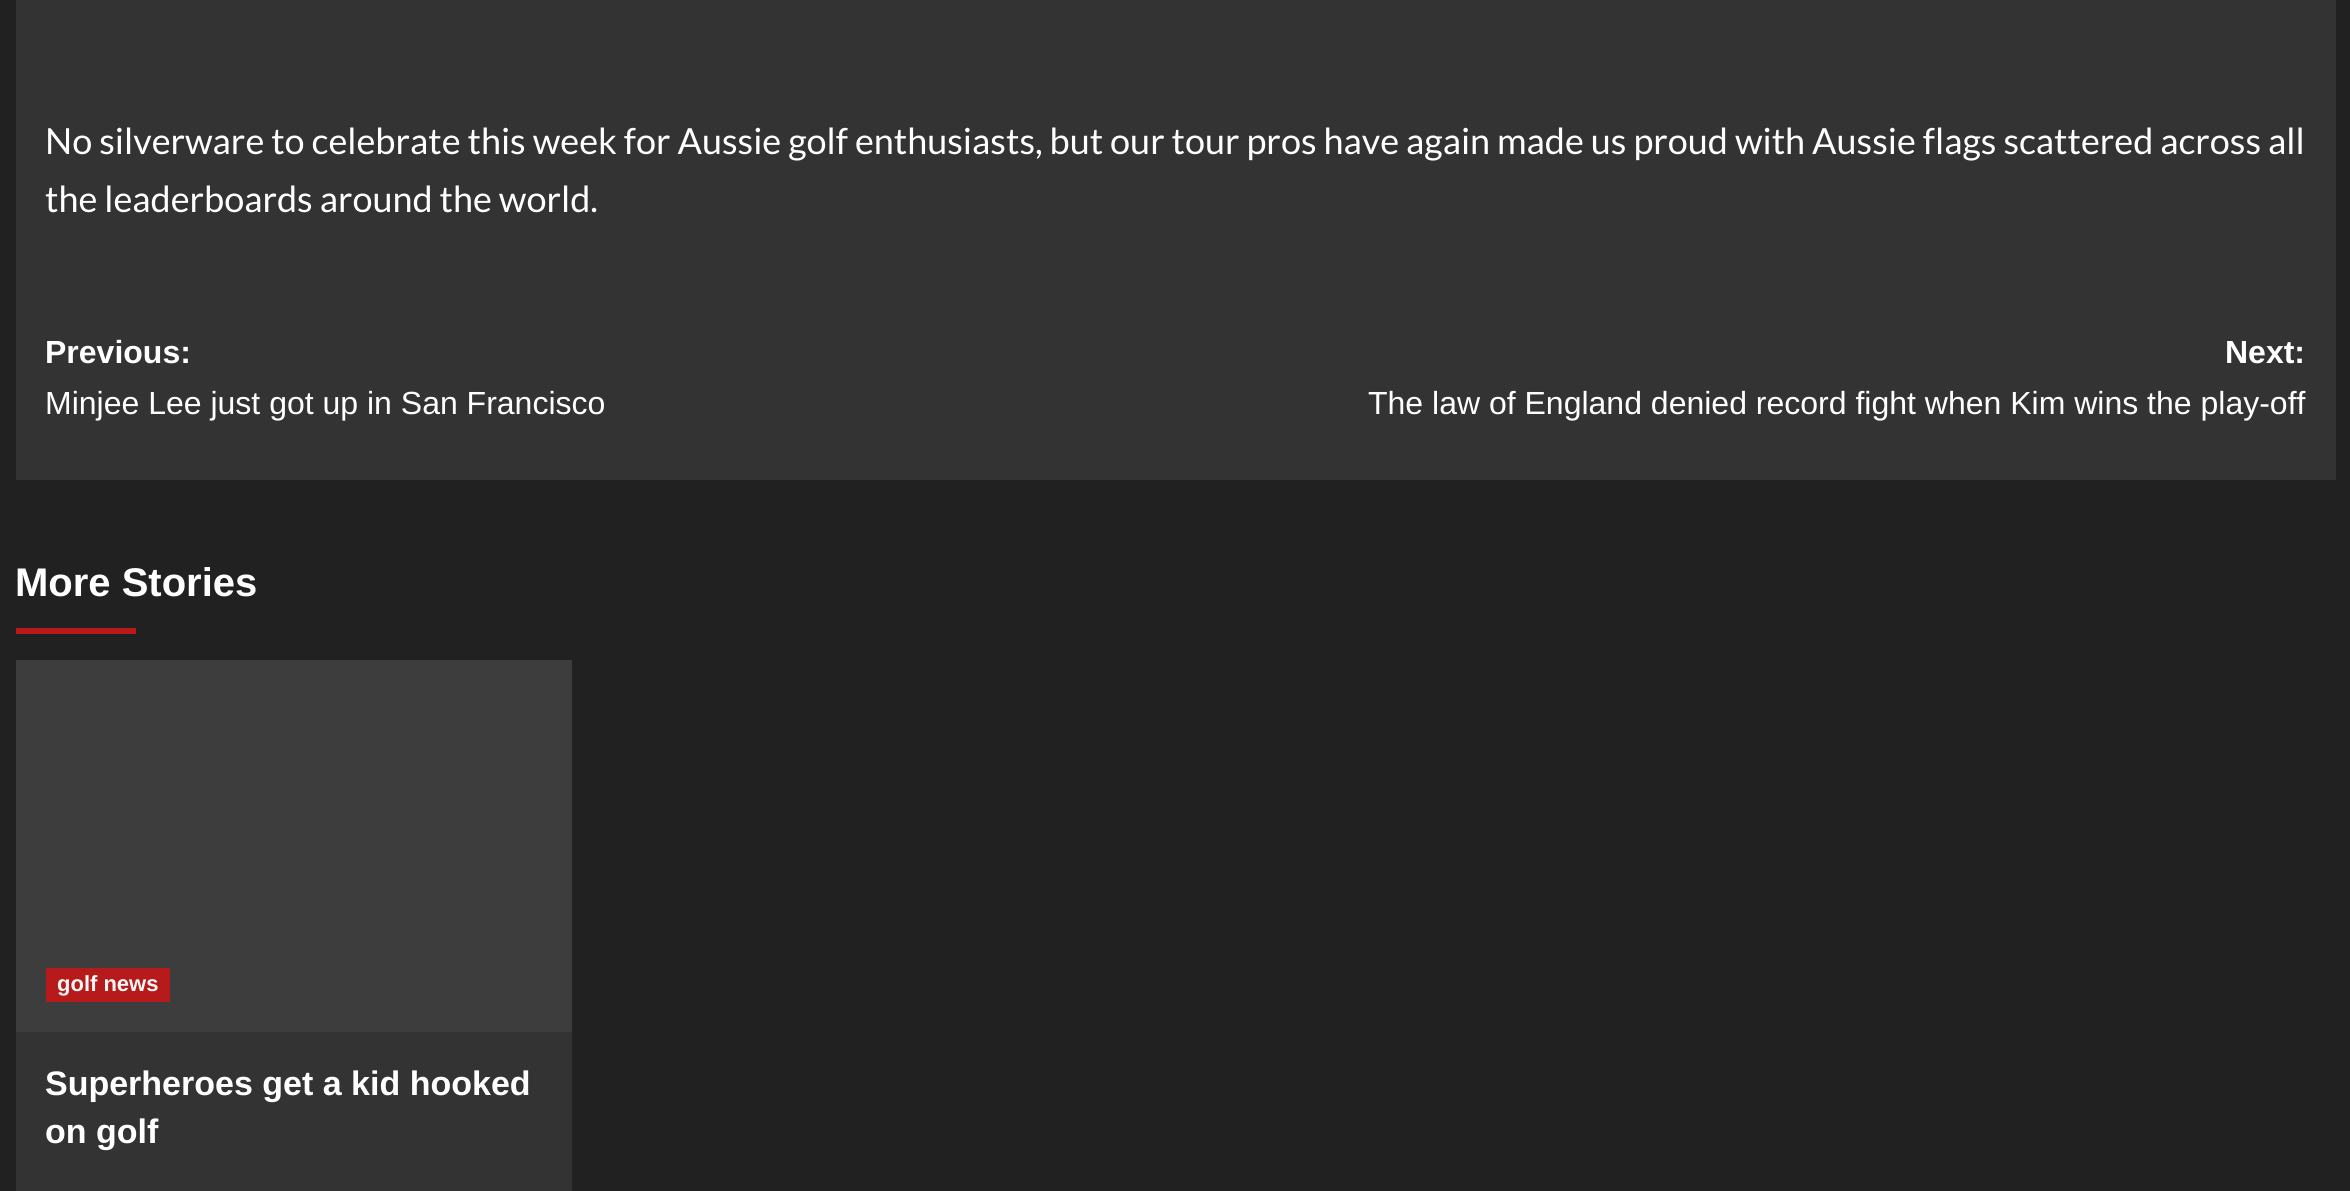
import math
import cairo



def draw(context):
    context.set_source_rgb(33 / 255, 33 / 255, 33 / 255)
    context.paint()
    context.set_source_rgb(51 / 255, 51 / 255, 51 / 255)
    context.rectangle(16, 0, 2320, 480)
    context.fill()
    context.set_source_rgb(187 / 255, 25 / 255, 25 / 255)
    context.rectangle(16, 628, 120, 6)
    context.fill()
    context.set_source_rgb(51 / 255, 51 / 255, 51 / 255)
    context.rectangle(16, 1032, 556, 159)
    context.fill()
    context.set_source_rgb(61 / 255, 61 / 255, 61 / 255)
    context.rectangle(16, 660, 556, 372)
    context.fill()
    context.set_source_rgb(182 / 255, 26 / 255, 26 / 255)
    context.rectangle(46, 968, 124, 34)
    context.fill()
    context.select_font_face("Lato")
    context.set_font_size(36)
    context.set_source_rgb(1, 1, 1)
    context.move_to(45, 154)
    context.show_text("No silverware to celebrate this week for Aussie golf enthusiasts, but our tour pros have again made us proud with Aussie flags scattered across all")
    context.move_to(45, 212)
    context.show_text("the leaderboards around the world.")
    context.select_font_face("Liberation Sans", cairo.FontSlant.NORMAL, cairo.FontWeight.BOLD)
    context.set_font_size(32)
    context.move_to(45, 363)
    context.show_text("Previous:")
    context.select_font_face("Liberation Sans")
    context.move_to(45, 414)
    context.show_text("Minjee Lee just got up in San Francisco")
    context.select_font_face("Liberation Sans", cairo.FontSlant.NORMAL, cairo.FontWeight.BOLD)
    context.move_to(2225, 363)
    context.show_text("Next:")
    context.select_font_face("Liberation Sans")
    context.move_to(1368, 414)
    context.show_text("The law of England denied record fight when Kim wins the play-off")
    context.select_font_face("Liberation Sans", cairo.FontSlant.NORMAL, cairo.FontWeight.BOLD)
    context.set_font_size(40)
    context.move_to(15, 596)
    context.show_text("More Stories")
    context.set_font_size(22)
    context.set_source_rgb(247 / 255, 247 / 255, 247 / 255)
    context.move_to(57, 991)
    context.show_text("golf news")
    context.set_font_size(34)
    context.set_source_rgb(1, 1, 1)
    context.move_to(45, 1095)
    context.show_text("Superheroes get a kid hooked")
    context.move_to(45, 1143)
    context.show_text("on golf")


surface = cairo.ImageSurface(cairo.Format.RGB24, 2350, 1191)
context = cairo.Context(surface)
options = cairo.FontOptions()
options.set_hint_metrics(cairo.HintMetrics.OFF)
options.set_hint_style(cairo.HintStyle.NONE)
context.set_font_options(options)
context.set_miter_limit(4)
draw(context)
surface.write_to_png("out.png")
